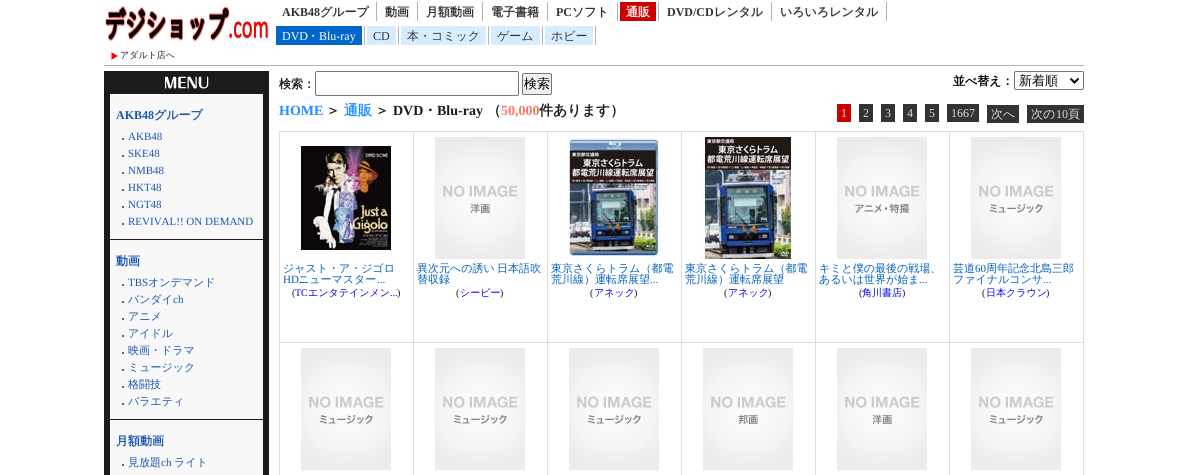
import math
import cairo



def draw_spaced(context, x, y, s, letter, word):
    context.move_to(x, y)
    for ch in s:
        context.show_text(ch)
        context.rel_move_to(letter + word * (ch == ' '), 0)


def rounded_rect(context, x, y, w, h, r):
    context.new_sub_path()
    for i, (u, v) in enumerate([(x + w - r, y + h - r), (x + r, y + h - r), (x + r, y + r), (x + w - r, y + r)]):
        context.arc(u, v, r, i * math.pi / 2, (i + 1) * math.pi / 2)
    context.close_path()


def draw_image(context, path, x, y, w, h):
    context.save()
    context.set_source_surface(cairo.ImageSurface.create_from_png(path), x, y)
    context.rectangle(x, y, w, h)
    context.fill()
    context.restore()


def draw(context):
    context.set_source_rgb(1, 1, 1)
    context.paint()
    context.set_source_rgb(180 / 255, 180 / 255, 180 / 255)
    context.rectangle(104, 65, 980, 1)
    context.fill()
    context.rectangle(376, 2, 1, 19)
    context.fill()
    context.rectangle(417, 2, 1, 19)
    context.fill()
    context.rectangle(482, 2, 1, 19)
    context.fill()
    context.rectangle(547, 2, 1, 19)
    context.fill()
    context.rectangle(617, 2, 1, 19)
    context.fill()
    context.rectangle(658, 2, 1, 19)
    context.fill()
    context.set_source_rgb(204 / 255, 0, 0)
    context.rectangle(620, 2, 36, 19)
    context.fill()
    context.set_source_rgb(180 / 255, 180 / 255, 180 / 255)
    context.rectangle(771, 2, 1, 19)
    context.fill()
    context.rectangle(886, 2, 1, 19)
    context.fill()
    context.rectangle(364, 26, 1, 19)
    context.fill()
    context.set_source_rgb(0, 102 / 255, 204 / 255)
    context.rectangle(276, 26, 86, 19)
    context.fill()
    context.set_source_rgb(180 / 255, 180 / 255, 180 / 255)
    context.rectangle(398, 26, 1, 19)
    context.fill()
    context.set_source_rgb(215 / 255, 237 / 255, 1)
    context.rectangle(367, 26, 29, 19)
    context.fill()
    context.set_source_rgb(180 / 255, 180 / 255, 180 / 255)
    context.rectangle(488, 26, 1, 19)
    context.fill()
    context.set_source_rgb(215 / 255, 237 / 255, 1)
    context.rectangle(401, 26, 85, 19)
    context.fill()
    context.set_source_rgb(180 / 255, 180 / 255, 180 / 255)
    context.rectangle(542, 26, 1, 19)
    context.fill()
    context.set_source_rgb(215 / 255, 237 / 255, 1)
    context.rectangle(491, 26, 49, 19)
    context.fill()
    context.set_source_rgb(180 / 255, 180 / 255, 180 / 255)
    context.rectangle(595, 26, 1, 19)
    context.fill()
    context.set_source_rgb(215 / 255, 237 / 255, 1)
    context.rectangle(545, 26, 48, 19)
    context.fill()
    draw_image(context, "images/1.png", 105, 6, 164, 36)
    draw_image(context, "images/2.png", 111, 52, 7, 8)
    draw_image(context, "images/3.png", 104, 71, 165, 22)
    context.set_source_rgb(27 / 255, 27 / 255, 27 / 255)
    context.rectangle(104, 93, 165, 382)
    context.fill()
    context.set_source_rgb(248 / 255, 248 / 255, 248 / 255)
    context.rectangle(110, 94, 153, 145)
    context.fill()
    context.set_source_rgb(102 / 255, 102 / 255, 102 / 255)
    context.rectangle(122, 138, 2, 2)
    context.fill()
    context.rectangle(122, 155, 2, 2)
    context.fill()
    context.rectangle(122, 172, 2, 2)
    context.fill()
    context.rectangle(122, 189, 2, 2)
    context.fill()
    context.rectangle(122, 206, 2, 2)
    context.fill()
    context.rectangle(122, 223, 2, 2)
    context.fill()
    context.set_source_rgb(248 / 255, 248 / 255, 248 / 255)
    context.rectangle(110, 240, 153, 179)
    context.fill()
    context.set_source_rgb(102 / 255, 102 / 255, 102 / 255)
    context.rectangle(122, 284, 2, 2)
    context.fill()
    context.rectangle(122, 301, 2, 2)
    context.fill()
    context.rectangle(122, 318, 2, 2)
    context.fill()
    context.rectangle(122, 335, 2, 2)
    context.fill()
    context.rectangle(122, 352, 2, 2)
    context.fill()
    context.rectangle(122, 369, 2, 2)
    context.fill()
    context.rectangle(122, 386, 2, 2)
    context.fill()
    context.rectangle(122, 403, 2, 2)
    context.fill()
    context.set_source_rgb(248 / 255, 248 / 255, 248 / 255)
    context.rectangle(110, 420, 153, 55)
    context.fill()
    context.set_source_rgb(102 / 255, 102 / 255, 102 / 255)
    context.rectangle(122, 464, 2, 2)
    context.fill()
    rounded_rect(context, 315.5, 71.5, 203, 24, 1.5)
    context.set_source_rgb(118 / 255, 118 / 255, 118 / 255)
    context.set_line_width(1)
    context.stroke()
    context.set_source_rgb(239 / 255, 239 / 255, 239 / 255)
    rounded_rect(context, 522.5, 73.5, 29, 21, 1.5)
    context.fill_preserve()
    context.set_source_rgb(118 / 255, 118 / 255, 118 / 255)
    context.stroke()
    rounded_rect(context, 1014.5, 71.5, 69, 18, 1.5)
    context.stroke()
    context.new_path()
    context.move_to(1070.5, 78.5)
    context.line_to(1074.5, 82.5)
    context.line_to(1078.5, 78.5)
    context.set_source_rgb(0, 0, 0)
    context.set_line_width(2)
    context.stroke()
    context.set_source_rgb(204 / 255, 0, 0)
    context.rectangle(837, 104, 14, 18)
    context.fill()
    context.set_source_rgb(51 / 255, 51 / 255, 51 / 255)
    context.rectangle(859, 104, 14, 18)
    context.fill()
    context.rectangle(881, 104, 14, 18)
    context.fill()
    context.rectangle(903, 104, 14, 18)
    context.fill()
    context.rectangle(925, 104, 14, 18)
    context.fill()
    context.rectangle(947, 104, 32, 18)
    context.fill()
    context.rectangle(987, 105, 32, 18)
    context.fill()
    context.rectangle(1027, 105, 57, 18)
    context.fill()
    context.set_source_rgb(221 / 255, 221 / 255, 221 / 255)
    context.rectangle(279, 131, 805, 344)
    context.fill()
    context.set_source_rgb(1, 1, 1)
    context.rectangle(280, 132, 133, 210)
    context.fill()
    draw_image(context, "images/4.png", 301, 145, 90, 105)
    context.rectangle(414, 132, 133, 210)
    context.fill()
    draw_image(context, "images/5.png", 435, 137, 90, 122)
    context.rectangle(548, 132, 133, 210)
    context.fill()
    draw_image(context, "images/6.png", 569, 137, 90, 122)
    context.rectangle(682, 132, 133, 210)
    context.fill()
    draw_image(context, "images/7.png", 703, 137, 90, 122)
    context.rectangle(816, 132, 133, 210)
    context.fill()
    draw_image(context, "images/8.png", 837, 137, 90, 122)
    context.rectangle(950, 132, 133, 210)
    context.fill()
    draw_image(context, "images/9.png", 971, 137, 90, 122)
    context.rectangle(280, 343, 133, 132)
    context.fill()
    draw_image(context, "images/9.png", 301, 348, 90, 122)
    context.rectangle(414, 343, 133, 132)
    context.fill()
    draw_image(context, "images/9.png", 435, 348, 90, 122)
    context.rectangle(548, 343, 133, 132)
    context.fill()
    draw_image(context, "images/9.png", 569, 348, 90, 122)
    context.rectangle(682, 343, 133, 132)
    context.fill()
    draw_image(context, "images/10.png", 703, 348, 90, 122)
    context.rectangle(816, 343, 133, 132)
    context.fill()
    draw_image(context, "images/5.png", 837, 348, 90, 122)
    context.rectangle(950, 343, 133, 132)
    context.fill()
    draw_image(context, "images/9.png", 971, 348, 90, 122)
    context.select_font_face("Liberation Serif", cairo.FontSlant.NORMAL, cairo.FontWeight.BOLD)
    context.set_font_size(12)
    context.set_source_rgb(51 / 255, 51 / 255, 51 / 255)
    context.move_to(282, 16)
    context.show_text("AKB48")
    context.select_font_face("WenQuanYi Zen Hei", cairo.FontSlant.NORMAL, cairo.FontWeight.BOLD)
    context.move_to(320, 16)
    context.show_text("グループ")
    context.move_to(385, 16)
    context.show_text("動画")
    context.move_to(426, 16)
    context.show_text("月額動画")
    context.move_to(491, 16)
    context.show_text("電子書籍")
    context.select_font_face("Liberation Serif", cairo.FontSlant.NORMAL, cairo.FontWeight.BOLD)
    context.move_to(556, 16)
    context.show_text("PC")
    context.select_font_face("WenQuanYi Zen Hei", cairo.FontSlant.NORMAL, cairo.FontWeight.BOLD)
    context.move_to(572, 16)
    context.show_text("ソフト")
    context.set_source_rgb(1, 1, 1)
    context.move_to(626, 16)
    context.show_text("通販")
    context.select_font_face("Liberation Serif", cairo.FontSlant.NORMAL, cairo.FontWeight.BOLD)
    context.set_source_rgb(51 / 255, 51 / 255, 51 / 255)
    context.move_to(667, 16)
    context.show_text("DVD/CD")
    context.select_font_face("WenQuanYi Zen Hei", cairo.FontSlant.NORMAL, cairo.FontWeight.BOLD)
    context.move_to(714, 16)
    context.show_text("レンタル")
    context.move_to(780, 16)
    context.show_text("いろいろレンタル")
    context.select_font_face("Liberation Serif")
    context.set_source_rgb(1, 1, 1)
    context.move_to(282, 40)
    context.show_text("DVD")
    context.select_font_face("WenQuanYi Zen Hei Medium")
    context.move_to(307, 40)
    context.show_text("・")
    context.select_font_face("Liberation Serif")
    context.move_to(319, 40)
    context.show_text("Blu-ray")
    context.set_source_rgb(51 / 255, 51 / 255, 51 / 255)
    context.move_to(373, 40)
    context.show_text("CD")
    context.select_font_face("WenQuanYi Zen Hei Medium")
    context.move_to(407, 40)
    context.show_text("本・コミック")
    context.move_to(497, 40)
    context.show_text("ゲーム")
    context.move_to(551, 40)
    context.show_text("ホビー")
    context.set_font_size(9)
    context.set_source_rgb(27 / 255, 27 / 255, 27 / 255)
    context.move_to(120, 58)
    context.show_text("アダルト店へ")
    context.select_font_face("Liberation Serif", cairo.FontSlant.NORMAL, cairo.FontWeight.BOLD)
    context.set_font_size(12)
    context.set_source_rgb(26 / 255, 85 / 255, 179 / 255)
    context.move_to(116, 119)
    context.show_text("AKB48")
    context.select_font_face("WenQuanYi Zen Hei", cairo.FontSlant.NORMAL, cairo.FontWeight.BOLD)
    context.move_to(154, 119)
    context.show_text("グループ")
    context.select_font_face("Liberation Serif")
    context.set_font_size(11)
    context.move_to(128, 140)
    context.show_text("AKB48")
    context.move_to(128, 157)
    context.show_text("SKE48")
    context.move_to(128, 174)
    context.show_text("NMB48")
    context.move_to(128, 191)
    context.show_text("HKT48")
    context.move_to(128, 208)
    context.show_text("NGT48")
    context.move_to(128, 225)
    context.show_text("REVIVAL!! ON DEMAND")
    context.select_font_face("WenQuanYi Zen Hei", cairo.FontSlant.NORMAL, cairo.FontWeight.BOLD)
    context.set_font_size(12)
    context.move_to(116, 265)
    context.show_text("動画")
    context.select_font_face("Liberation Serif")
    context.set_font_size(11)
    context.move_to(128, 286)
    context.show_text("TBS")
    context.select_font_face("WenQuanYi Zen Hei Medium")
    context.move_to(148, 286)
    context.show_text("オンデマンド")
    context.move_to(128, 303)
    context.show_text("バンダイ")
    context.select_font_face("Liberation Serif")
    context.move_to(173, 303)
    context.show_text("ch")
    context.select_font_face("WenQuanYi Zen Hei Medium")
    context.move_to(128, 320)
    context.show_text("アニメ")
    context.move_to(128, 337)
    context.show_text("アイドル")
    context.move_to(128, 354)
    context.show_text("映画・ドラマ")
    context.move_to(128, 371)
    context.show_text("ミュージック")
    context.move_to(128, 388)
    context.show_text("格闘技")
    context.move_to(128, 405)
    context.show_text("バラエティ")
    context.select_font_face("WenQuanYi Zen Hei", cairo.FontSlant.NORMAL, cairo.FontWeight.BOLD)
    context.set_font_size(12)
    context.move_to(116, 445)
    context.show_text("月額動画")
    context.select_font_face("WenQuanYi Zen Hei Medium")
    context.set_font_size(11)
    context.move_to(128, 466)
    context.show_text("見放題")
    context.select_font_face("Liberation Serif")
    context.move_to(161, 466)
    context.show_text("ch")
    context.select_font_face("WenQuanYi Zen Hei Medium")
    context.move_to(174, 466)
    context.show_text("ライト")
    context.select_font_face("WenQuanYi Zen Hei", cairo.FontSlant.NORMAL, cairo.FontWeight.BOLD)
    context.set_font_size(12)
    context.set_source_rgb(34 / 255, 34 / 255, 34 / 255)
    context.move_to(279, 88)
    context.show_text("検索：")
    context.select_font_face("WenQuanYi Zen Hei Medium")
    context.set_font_size(13)
    context.set_source_rgb(0, 0, 0)
    context.move_to(524, 88)
    context.show_text("検索")
    context.select_font_face("WenQuanYi Zen Hei", cairo.FontSlant.NORMAL, cairo.FontWeight.BOLD)
    context.set_font_size(12)
    context.move_to(953, 85)
    context.show_text("並べ替え：")
    context.select_font_face("WenQuanYi Zen Hei Medium")
    context.set_font_size(13)
    context.move_to(1019, 85)
    context.show_text("新着順")
    context.select_font_face("Liberation Serif", cairo.FontSlant.NORMAL, cairo.FontWeight.BOLD)
    context.set_font_size(14)
    context.set_source_rgb(30 / 255, 144 / 255, 1)
    context.move_to(279, 115)
    context.show_text("HOME")
    context.select_font_face("WenQuanYi Zen Hei", cairo.FontSlant.NORMAL, cairo.FontWeight.BOLD)
    context.set_source_rgb(27 / 255, 27 / 255, 27 / 255)
    context.move_to(326, 115)
    context.show_text("＞")
    context.set_source_rgb(30 / 255, 144 / 255, 1)
    context.move_to(344, 115)
    context.show_text("通販")
    context.set_source_rgb(27 / 255, 27 / 255, 27 / 255)
    context.move_to(375, 115)
    context.show_text("＞")
    context.select_font_face("Liberation Serif", cairo.FontSlant.NORMAL, cairo.FontWeight.BOLD)
    context.move_to(393, 115)
    context.show_text("DVD")
    context.select_font_face("WenQuanYi Zen Hei", cairo.FontSlant.NORMAL, cairo.FontWeight.BOLD)
    context.move_to(423, 115)
    context.show_text("・")
    context.select_font_face("Liberation Serif", cairo.FontSlant.NORMAL, cairo.FontWeight.BOLD)
    context.move_to(437, 115)
    context.show_text("Blu-ray")
    context.select_font_face("WenQuanYi Zen Hei", cairo.FontSlant.NORMAL, cairo.FontWeight.BOLD)
    context.move_to(487, 115)
    context.show_text("（")
    context.select_font_face("Liberation Serif", cairo.FontSlant.NORMAL, cairo.FontWeight.BOLD)
    context.set_source_rgb(244 / 255, 124 / 255, 104 / 255)
    context.move_to(501, 115)
    context.show_text("50,000")
    context.select_font_face("WenQuanYi Zen Hei", cairo.FontSlant.NORMAL, cairo.FontWeight.BOLD)
    context.set_source_rgb(27 / 255, 27 / 255, 27 / 255)
    context.move_to(539, 115)
    context.show_text("件あります）")
    context.select_font_face("Liberation Serif")
    context.set_font_size(12)
    context.set_source_rgb(221 / 255, 221 / 255, 221 / 255)
    context.move_to(841, 117)
    context.show_text("1")
    context.move_to(863, 117)
    context.show_text("2")
    context.move_to(885, 117)
    context.show_text("3")
    context.move_to(907, 117)
    context.show_text("4")
    context.move_to(929, 117)
    context.show_text("5")
    context.move_to(951, 117)
    context.show_text("1667")
    context.select_font_face("WenQuanYi Zen Hei Medium")
    context.move_to(991, 118)
    context.show_text("次へ")
    context.move_to(1031, 118)
    context.show_text("次の")
    context.select_font_face("Liberation Serif")
    context.move_to(1056, 118)
    context.show_text("10")
    context.select_font_face("WenQuanYi Zen Hei Medium")
    context.move_to(1068, 118)
    context.show_text("頁")
    context.set_font_size(11)
    context.set_source_rgb(0, 95 / 255, 192 / 255)
    context.move_to(283, 272)
    context.show_text("ジャスト・ア・ジゴロ")
    context.select_font_face("Liberation Serif")
    context.move_to(283, 283)
    context.show_text("HD")
    context.select_font_face("WenQuanYi Zen Hei Medium")
    context.move_to(298, 283)
    context.show_text("ニューマスター")
    context.select_font_face("Liberation Serif")
    context.move_to(377, 283)
    context.show_text("...")
    context.set_font_size(10)
    context.set_source_rgb(27 / 255, 27 / 255, 27 / 255)
    context.move_to(292, 296)
    context.show_text("(")
    context.set_source_rgb(0, 0, 238 / 255)
    context.move_to(295, 296)
    context.show_text("TC")
    context.select_font_face("WenQuanYi Zen Hei Medium")
    context.move_to(308, 296)
    context.show_text("エンタテインメン")
    context.select_font_face("Liberation Serif")
    context.move_to(390, 296)
    context.show_text("...")
    context.set_source_rgb(27 / 255, 27 / 255, 27 / 255)
    context.move_to(397, 296)
    context.show_text(")")
    context.select_font_face("WenQuanYi Zen Hei Medium")
    context.set_font_size(11)
    context.set_source_rgb(0, 95 / 255, 192 / 255)
    draw_spaced(context, 417, 272, "異次元への誘い 日本語吹", 0, -1)
    context.move_to(417, 283)
    context.show_text("替収録")
    context.select_font_face("Liberation Serif")
    context.set_font_size(10)
    context.set_source_rgb(27 / 255, 27 / 255, 27 / 255)
    context.move_to(456, 296)
    context.show_text("(")
    context.select_font_face("WenQuanYi Zen Hei Medium")
    context.set_source_rgb(0, 0, 238 / 255)
    context.move_to(460, 296)
    context.show_text("シービー")
    context.select_font_face("Liberation Serif")
    context.set_source_rgb(27 / 255, 27 / 255, 27 / 255)
    context.move_to(500, 296)
    context.show_text(")")
    context.select_font_face("WenQuanYi Zen Hei Medium")
    context.set_font_size(11)
    context.set_source_rgb(0, 95 / 255, 192 / 255)
    context.move_to(551, 272)
    context.show_text("東京さくらトラム（都電")
    context.move_to(551, 283)
    context.show_text("荒川線）運転席展望")
    context.select_font_face("Liberation Serif")
    context.move_to(650, 283)
    context.show_text("...")
    context.set_font_size(10)
    context.set_source_rgb(27 / 255, 27 / 255, 27 / 255)
    context.move_to(590, 296)
    context.show_text("(")
    context.select_font_face("WenQuanYi Zen Hei Medium")
    context.set_source_rgb(0, 0, 238 / 255)
    context.move_to(594, 296)
    context.show_text("アネック")
    context.select_font_face("Liberation Serif")
    context.set_source_rgb(27 / 255, 27 / 255, 27 / 255)
    context.move_to(634, 296)
    context.show_text(")")
    context.select_font_face("WenQuanYi Zen Hei Medium")
    context.set_font_size(11)
    context.set_source_rgb(0, 95 / 255, 192 / 255)
    context.move_to(685, 272)
    context.show_text("東京さくらトラム（都電")
    context.move_to(685, 283)
    context.show_text("荒川線）運転席展望")
    context.select_font_face("Liberation Serif")
    context.set_font_size(10)
    context.set_source_rgb(27 / 255, 27 / 255, 27 / 255)
    context.move_to(724, 296)
    context.show_text("(")
    context.select_font_face("WenQuanYi Zen Hei Medium")
    context.set_source_rgb(0, 0, 238 / 255)
    context.move_to(728, 296)
    context.show_text("アネック")
    context.select_font_face("Liberation Serif")
    context.set_source_rgb(27 / 255, 27 / 255, 27 / 255)
    context.move_to(768, 296)
    context.show_text(")")
    context.select_font_face("WenQuanYi Zen Hei Medium")
    context.set_font_size(11)
    context.set_source_rgb(0, 95 / 255, 192 / 255)
    context.move_to(819, 272)
    context.show_text("キミと僕の最後の戦場、")
    context.move_to(819, 283)
    context.show_text("あるいは世界が始ま")
    context.select_font_face("Liberation Serif")
    context.move_to(919, 283)
    context.show_text("...")
    context.set_font_size(10)
    context.set_source_rgb(27 / 255, 27 / 255, 27 / 255)
    context.move_to(859, 296)
    context.show_text("(")
    context.select_font_face("WenQuanYi Zen Hei Medium")
    context.set_source_rgb(0, 0, 238 / 255)
    context.move_to(862, 296)
    context.show_text("角川書店")
    context.select_font_face("Liberation Serif")
    context.set_source_rgb(27 / 255, 27 / 255, 27 / 255)
    context.move_to(902, 296)
    context.show_text(")")
    context.select_font_face("WenQuanYi Zen Hei Medium")
    context.set_font_size(11)
    context.set_source_rgb(0, 95 / 255, 192 / 255)
    context.move_to(953, 272)
    context.show_text("芸道")
    context.select_font_face("Liberation Serif")
    context.move_to(975, 272)
    context.show_text("60")
    context.select_font_face("WenQuanYi Zen Hei Medium")
    context.move_to(986, 272)
    context.show_text("周年記念北島三郎")
    context.move_to(953, 283)
    context.show_text("ファイナルコンサ")
    context.select_font_face("Liberation Serif")
    context.move_to(1043, 283)
    context.show_text("...")
    context.set_font_size(10)
    context.set_source_rgb(27 / 255, 27 / 255, 27 / 255)
    context.move_to(982, 296)
    context.show_text("(")
    context.select_font_face("WenQuanYi Zen Hei Medium")
    context.set_source_rgb(0, 0, 238 / 255)
    context.move_to(986, 296)
    context.show_text("日本クラウン")
    context.select_font_face("Liberation Serif")
    context.set_source_rgb(27 / 255, 27 / 255, 27 / 255)
    context.move_to(1046, 296)
    context.show_text(")")


surface = cairo.ImageSurface(cairo.Format.RGB24, 1187, 475)
context = cairo.Context(surface)
options = cairo.FontOptions()
options.set_hint_metrics(cairo.HintMetrics.OFF)
options.set_hint_style(cairo.HintStyle.NONE)
context.set_font_options(options)
context.set_miter_limit(4)
draw(context)
surface.write_to_png("out.png")
